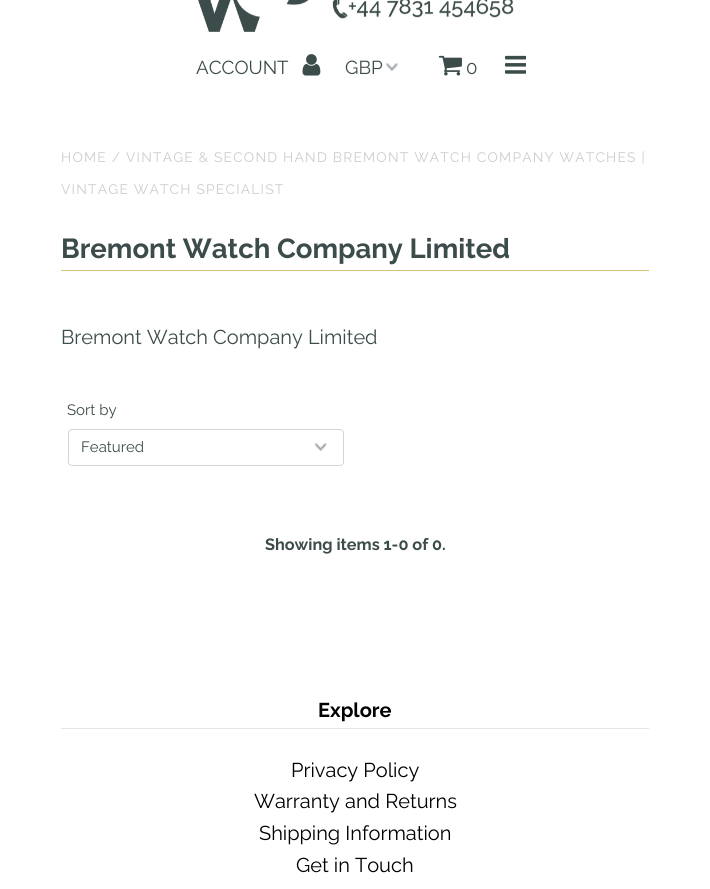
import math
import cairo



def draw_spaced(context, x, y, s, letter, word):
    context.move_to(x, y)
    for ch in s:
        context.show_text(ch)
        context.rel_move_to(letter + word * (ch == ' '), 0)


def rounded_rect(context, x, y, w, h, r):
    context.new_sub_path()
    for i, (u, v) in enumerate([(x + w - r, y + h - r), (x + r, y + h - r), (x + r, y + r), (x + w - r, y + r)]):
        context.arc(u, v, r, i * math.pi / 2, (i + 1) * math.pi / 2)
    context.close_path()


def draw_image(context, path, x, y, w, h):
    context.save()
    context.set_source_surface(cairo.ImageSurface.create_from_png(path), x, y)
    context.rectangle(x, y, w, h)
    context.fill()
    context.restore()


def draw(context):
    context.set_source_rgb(1, 1, 1)
    context.paint()
    draw_image(context, "images/1.png", 198, 0, 316, 32)
    draw_image(context, "images/2.png", 302, 54, 19, 22)
    draw_image(context, "images/3.png", 386, 63, 12, 8)
    draw_image(context, "images/4.png", 438, 55, 24, 21)
    draw_image(context, "images/5.png", 505, 55, 21, 19)
    context.set_source_rgb(219 / 255, 192 / 255, 124 / 255)
    context.rectangle(61, 270, 588, 1)
    context.fill()
    draw_image(context, "images/6.png", 314, 443, 13, 8)
    rounded_rect(context, 68.5, 429.5, 275, 36, 3.5)
    context.set_source_rgb(213 / 255, 213 / 255, 213 / 255)
    context.set_line_width(1)
    context.stroke()
    context.set_source_rgb(229 / 255, 229 / 255, 229 / 255)
    context.rectangle(61, 728, 588, 1)
    context.fill()
    context.select_font_face("Raleway")
    context.set_font_size(18.75)
    context.set_source_rgb(60 / 255, 76 / 255, 74 / 255)
    context.move_to(196, 74)
    context.show_text("ACCOUNT")
    context.move_to(345, 74)
    context.show_text("GBP")
    context.move_to(466, 74)
    context.show_text("0")
    context.set_font_size(13.75)
    context.set_source_rgb(204 / 255, 204 / 255, 204 / 255)
    draw_spaced(context, 61, 162, "HOME / VINTAGE & SECOND HAND BREMONT WATCH COMPANY WATCHES |", 1.25, 0)
    draw_spaced(context, 61, 194, "VINTAGE WATCH SPECIALIST", 1.25, 0)
    context.select_font_face("Raleway", cairo.FontSlant.NORMAL, cairo.FontWeight.BOLD)
    context.set_font_size(27.5)
    context.set_source_rgb(60 / 255, 76 / 255, 74 / 255)
    context.move_to(61, 258)
    context.show_text("Bremont Watch Company Limited")
    context.select_font_face("Raleway")
    context.set_font_size(20)
    context.move_to(61, 344)
    context.show_text("Bremont Watch Company Limited")
    context.set_font_size(15)
    context.move_to(67, 415)
    context.show_text("Sort by")
    context.move_to(81, 452)
    context.show_text("Featured")
    context.select_font_face("Raleway", cairo.FontSlant.NORMAL, cairo.FontWeight.BOLD)
    context.set_font_size(16.25)
    context.move_to(265, 550)
    context.show_text("Showing items 1-0 of 0.")
    context.set_font_size(20)
    context.set_source_rgb(0, 0, 0)
    context.move_to(318, 717)
    context.show_text("Explore")
    context.select_font_face("Raleway")
    context.move_to(291, 777)
    context.show_text("Privacy Policy")
    context.move_to(254, 808)
    context.show_text("Warranty and Returns")
    context.move_to(259, 840)
    context.show_text("Shipping Information")
    context.move_to(296, 872)
    context.show_text("Get in Touch")


surface = cairo.ImageSurface(cairo.Format.RGB24, 710, 889)
context = cairo.Context(surface)
options = cairo.FontOptions()
options.set_hint_metrics(cairo.HintMetrics.OFF)
options.set_hint_style(cairo.HintStyle.NONE)
context.set_font_options(options)
context.set_miter_limit(4)
draw(context)
surface.write_to_png("out.png")
